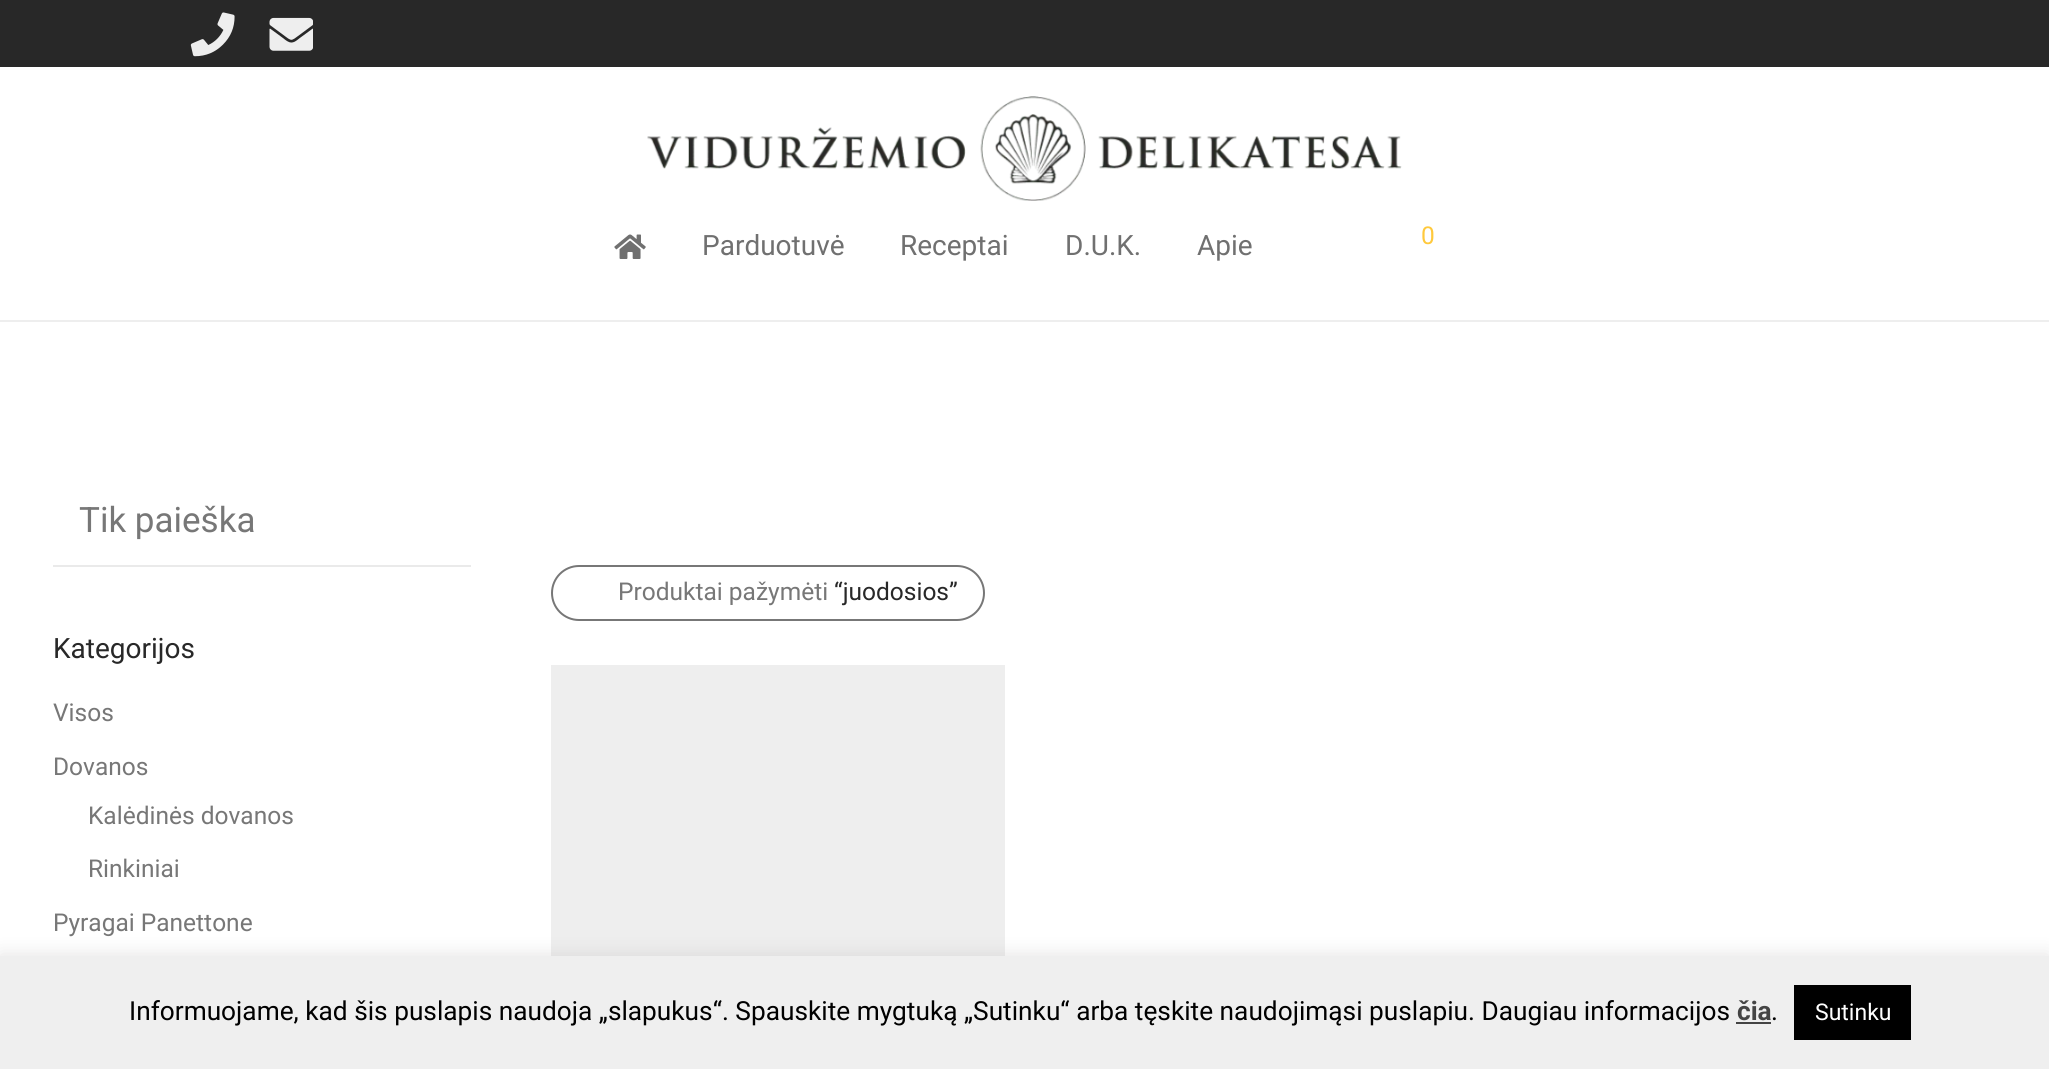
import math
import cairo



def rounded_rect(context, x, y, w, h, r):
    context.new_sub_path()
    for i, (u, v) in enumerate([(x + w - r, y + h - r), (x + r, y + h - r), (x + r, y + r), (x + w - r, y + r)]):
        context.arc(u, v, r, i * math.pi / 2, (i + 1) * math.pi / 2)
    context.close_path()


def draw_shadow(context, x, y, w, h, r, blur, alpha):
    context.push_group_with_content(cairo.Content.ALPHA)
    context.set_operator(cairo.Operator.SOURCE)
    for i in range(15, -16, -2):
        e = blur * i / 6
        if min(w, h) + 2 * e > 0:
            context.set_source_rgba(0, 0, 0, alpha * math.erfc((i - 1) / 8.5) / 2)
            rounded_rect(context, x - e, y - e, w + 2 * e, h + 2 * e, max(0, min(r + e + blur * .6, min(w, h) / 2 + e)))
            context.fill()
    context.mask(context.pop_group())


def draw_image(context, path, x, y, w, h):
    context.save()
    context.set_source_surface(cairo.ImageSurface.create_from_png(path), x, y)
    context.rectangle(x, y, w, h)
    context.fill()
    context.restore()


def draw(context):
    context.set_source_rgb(1, 1, 1)
    context.paint()
    context.set_source_rgb(40 / 255, 40 / 255, 40 / 255)
    context.rectangle(0, 0, 2049, 67)
    context.fill()
    draw_image(context, "images/1.png", 190, 12, 45, 45)
    draw_image(context, "images/2.png", 269, 17, 44, 34)
    context.set_source_rgb(238 / 255, 238 / 255, 238 / 255)
    context.rectangle(0, 320, 2049, 2)
    context.fill()
    draw_image(context, "images/3.png", 647, 96, 755, 105)
    draw_image(context, "images/4.png", 614, 234, 32, 25)
    rounded_rect(context, 552, 566, 432, 54, 27)
    context.set_source_rgb(119 / 255, 119 / 255, 119 / 255)
    context.stroke()
    context.set_source_rgb(238 / 255, 238 / 255, 238 / 255)
    context.rectangle(551, 665, 454, 291)
    context.fill()
    context.set_source_rgb(234 / 255, 234 / 255, 234 / 255)
    context.rectangle(53, 565, 418, 2)
    context.fill()
    context.set_source_rgb(172 / 255, 171 / 255, 171 / 255)
    draw_shadow(context, 0, 954, 2049, 114, 0, 9, 0.3)
    context.set_source_rgb(239 / 255, 239 / 255, 239 / 255)
    context.rectangle(0, 956, 2049, 113)
    context.fill()
    context.set_source_rgb(68 / 255, 68 / 255, 68 / 255)
    context.rectangle(1736, 1022, 35, 2)
    context.fill()
    context.set_source_rgb(0, 0, 0)
    context.rectangle(1794, 985, 117, 55)
    context.fill()
    context.select_font_face("Roboto")
    context.set_font_size(28)
    context.set_source_rgb(112 / 255, 112 / 255, 112 / 255)
    context.move_to(702, 255)
    context.show_text("Parduotuvė")
    context.move_to(900, 255)
    context.show_text("Receptai")
    context.move_to(1065, 255)
    context.show_text("D.U.K.")
    context.move_to(1197, 255)
    context.show_text("Apie")
    context.set_font_size(24.5)
    context.set_source_rgb(1, 201 / 255, 60 / 255)
    context.move_to(1421, 244)
    context.show_text("0")
    context.set_font_size(35)
    context.set_source_rgb(119 / 255, 119 / 255, 119 / 255)
    context.move_to(79, 532)
    context.show_text("Tik paieška")
    context.set_font_size(24.5)
    context.move_to(618, 600)
    context.show_text("Produktai pažymėti")
    context.set_source_rgb(40 / 255, 40 / 255, 40 / 255)
    context.move_to(834, 600)
    context.show_text("“juodosios”")
    context.set_font_size(28)
    context.move_to(53, 658)
    context.show_text("Kategorijos")
    context.set_font_size(24.5)
    context.set_source_rgb(119 / 255, 119 / 255, 119 / 255)
    context.move_to(53, 721)
    context.show_text("Visos")
    context.move_to(53, 775)
    context.show_text("Dovanos")
    context.move_to(88, 824)
    context.show_text("Kalėdinės dovanos")
    context.move_to(88, 877)
    context.show_text("Rinkiniai")
    context.move_to(53, 931)
    context.show_text("Pyragai Panettone")
    context.set_font_size(26.25)
    context.set_source_rgb(0, 0, 0)
    context.move_to(129, 1020)
    context.show_text("Informuojame, kad šis puslapis naudoja „slapukus“. Spauskite mygtuką „Sutinku“ arba tęskite naudojimąsi puslapiu. Daugiau informacijos")
    context.select_font_face("Roboto", cairo.FontSlant.NORMAL, cairo.FontWeight.BOLD)
    context.set_source_rgb(68 / 255, 68 / 255, 68 / 255)
    context.move_to(1737, 1020)
    context.show_text("čia")
    context.select_font_face("Roboto")
    context.set_source_rgb(0, 0, 0)
    context.move_to(1771, 1020)
    context.show_text(".")
    context.set_font_size(23)
    context.set_source_rgb(1, 1, 1)
    context.move_to(1815, 1020)
    context.show_text("Sutinku")


surface = cairo.ImageSurface(cairo.Format.RGB24, 2049, 1069)
context = cairo.Context(surface)
options = cairo.FontOptions()
options.set_hint_metrics(cairo.HintMetrics.OFF)
options.set_hint_style(cairo.HintStyle.NONE)
context.set_font_options(options)
context.set_miter_limit(4)
draw(context)
surface.write_to_png("out.png")
